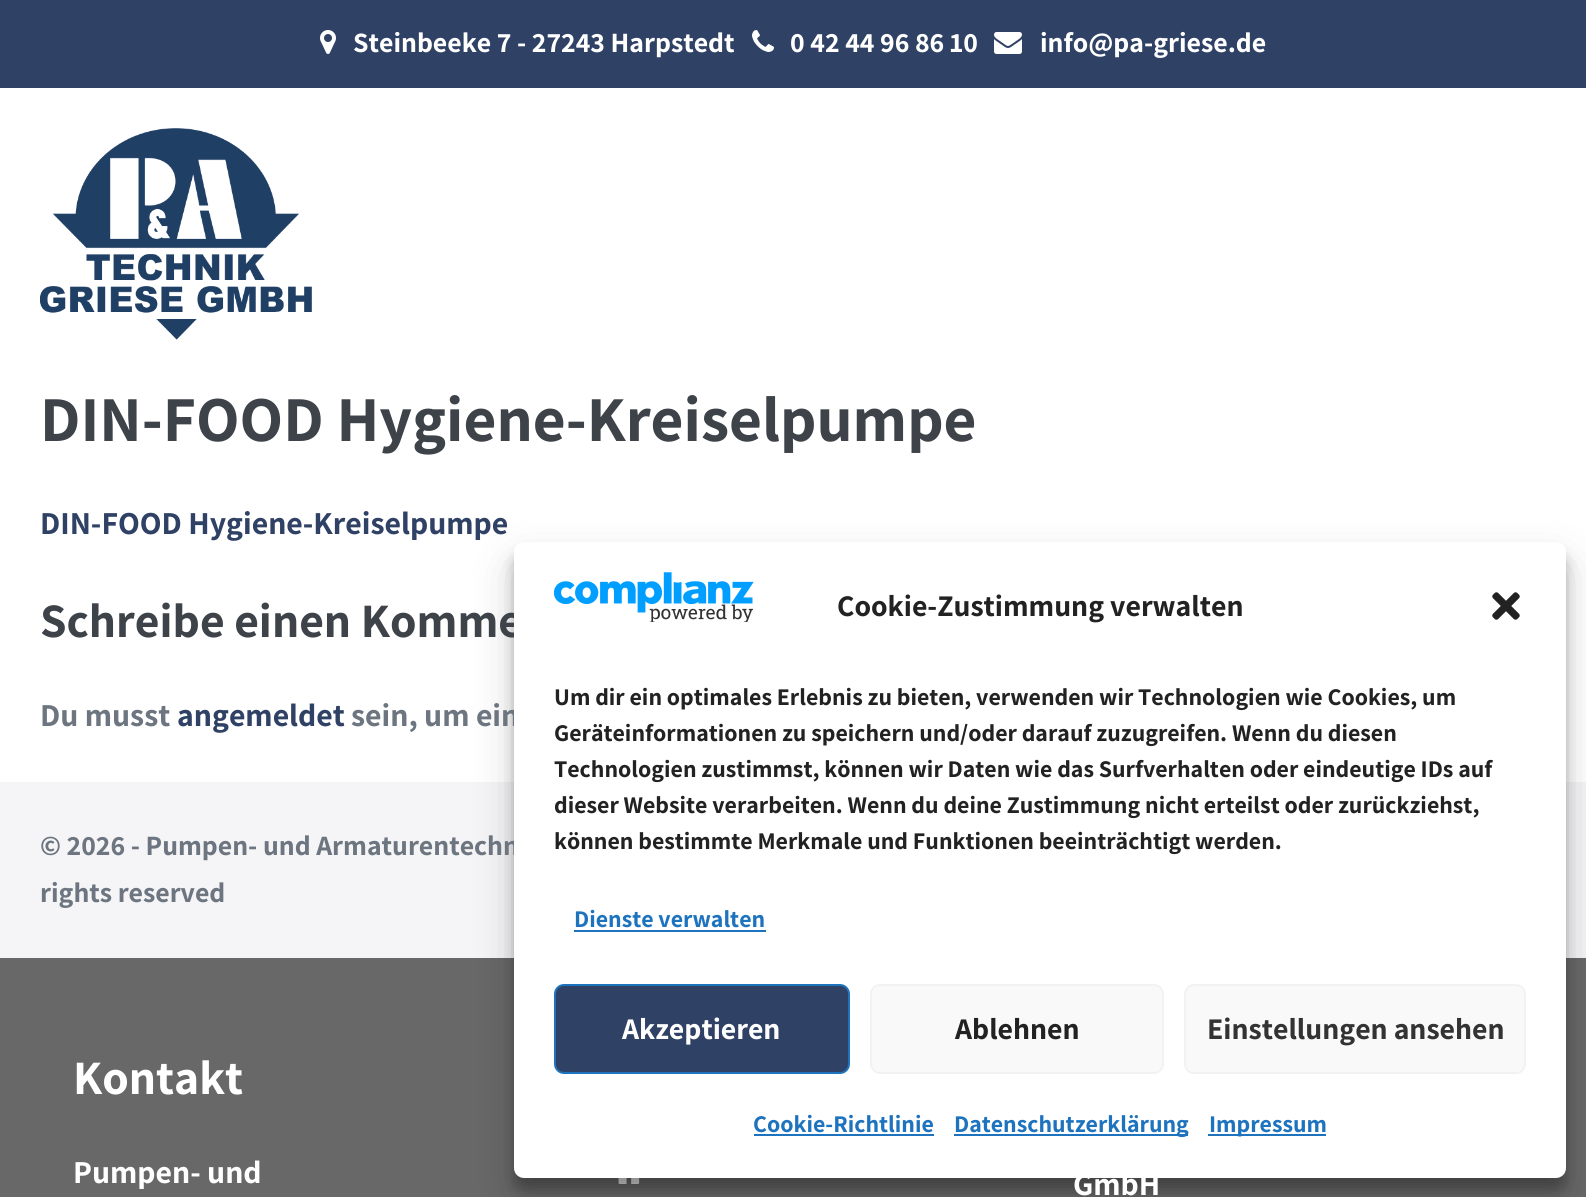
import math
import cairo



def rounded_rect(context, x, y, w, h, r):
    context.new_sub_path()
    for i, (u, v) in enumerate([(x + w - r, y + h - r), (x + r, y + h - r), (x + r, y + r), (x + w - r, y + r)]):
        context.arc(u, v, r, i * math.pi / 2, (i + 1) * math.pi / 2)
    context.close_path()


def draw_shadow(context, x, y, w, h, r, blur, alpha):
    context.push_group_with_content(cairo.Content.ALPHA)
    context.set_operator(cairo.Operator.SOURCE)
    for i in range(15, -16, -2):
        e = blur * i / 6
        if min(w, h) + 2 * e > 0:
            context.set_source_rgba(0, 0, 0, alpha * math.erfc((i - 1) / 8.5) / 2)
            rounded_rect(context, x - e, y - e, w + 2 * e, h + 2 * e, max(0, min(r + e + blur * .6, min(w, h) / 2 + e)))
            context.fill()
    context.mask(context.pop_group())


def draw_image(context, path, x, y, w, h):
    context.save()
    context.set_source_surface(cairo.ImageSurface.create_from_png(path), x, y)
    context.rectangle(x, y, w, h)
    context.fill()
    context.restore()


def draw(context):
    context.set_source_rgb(1, 1, 1)
    context.paint()
    context.set_source_rgb(47 / 255, 65 / 255, 100 / 255)
    context.rectangle(0, 0, 1586, 88)
    context.fill()
    draw_image(context, "images/1.png", 320, 30, 16, 24)
    draw_image(context, "images/2.png", 752, 30, 22, 22)
    draw_image(context, "images/3.png", 994, 32, 28, 22)
    draw_image(context, "images/4.png", 40, 128, 272, 212)
    context.set_source_rgb(245 / 255, 245 / 255, 247 / 255)
    context.rectangle(0, 782, 1586, 176)
    context.fill()
    context.set_source_rgb(104 / 255, 104 / 255, 104 / 255)
    context.rectangle(0, 958, 1586, 239)
    context.fill()
    draw_image(context, "images/7.png", 618, 1178, 22, 6)
    context.set_source_rgb(0, 0, 0)
    draw_shadow(context, 514, 554, 1052, 636, 10, 6, 0.23)
    draw_shadow(context, 514, 562, 1052, 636, 10, 20, 0.19)
    context.select_font_face("Assistant", cairo.FontSlant.NORMAL, cairo.FontWeight.BOLD)
    context.set_font_size(28)
    context.set_source_rgb(1, 1, 1)
    context.move_to(353, 52)
    context.show_text("Steinbeeke 7 - 27243 Harpstedt")
    context.move_to(790, 52)
    context.show_text("0 42 44 96 86 10")
    context.move_to(1040, 52)
    context.show_text("info@pa-griese.de")
    context.set_font_size(64)
    context.set_source_rgb(62 / 255, 67 / 255, 73 / 255)
    context.move_to(40, 441)
    context.show_text("DIN-FOOD Hygiene-Kreiselpumpe")
    context.set_font_size(32)
    context.set_source_rgb(47 / 255, 65 / 255, 100 / 255)
    context.move_to(40, 534)
    context.show_text("DIN-FOOD Hygiene-Kreiselpumpe")
    context.set_font_size(48)
    context.set_source_rgb(62 / 255, 67 / 255, 73 / 255)
    context.move_to(40, 637)
    context.show_text("Schreibe einen Komme")
    context.set_font_size(32)
    context.set_source_rgb(109 / 255, 118 / 255, 128 / 255)
    context.move_to(40, 726)
    context.show_text("Du musst")
    context.set_source_rgb(47 / 255, 65 / 255, 100 / 255)
    context.move_to(177, 726)
    context.show_text("angemeldet")
    context.set_source_rgb(109 / 255, 118 / 255, 128 / 255)
    context.move_to(351, 726)
    context.show_text("sein, um ein")
    context.set_font_size(28)
    context.move_to(40, 855)
    context.show_text("© 2026 - Pumpen- und Armaturentechn")
    context.move_to(40, 902)
    context.show_text("rights reserved")
    context.set_source_rgb(1, 1, 1)
    rounded_rect(context, 514, 542, 1052, 636, 10)
    context.fill()
    draw_image(context, "images/5.png", 554, 572, 200, 50)
    context.set_font_size(30)
    context.set_source_rgb(34 / 255, 34 / 255, 34 / 255)
    context.move_to(837, 616)
    context.show_text("Cookie-Zustimmung verwalten")
    draw_image(context, "images/6.png", 1492, 592, 28, 28)
    context.set_font_size(24)
    context.move_to(554, 705)
    context.show_text("Um dir ein optimales Erlebnis zu bieten, verwenden wir Technologien wie Cookies, um")
    context.move_to(554, 741)
    context.show_text("Geräteinformationen zu speichern und/oder darauf zuzugreifen. Wenn du diesen")
    context.move_to(554, 777)
    context.show_text("Technologien zustimmst, können wir Daten wie das Surfverhalten oder eindeutige IDs auf")
    context.move_to(554, 813)
    context.show_text("dieser Website verarbeiten. Wenn du deine Zustimmung nicht erteilst oder zurückziehst,")
    context.move_to(554, 849)
    context.show_text("können bestimmte Merkmale und Funktionen beeinträchtigt werden.")
    context.set_source_rgb(30 / 255, 115 / 255, 190 / 255)
    context.move_to(574, 927)
    context.show_text("Dienste verwalten")
    context.rectangle(574, 930, 192, 2)
    context.fill()
    context.set_source_rgb(47 / 255, 65 / 255, 100 / 255)
    rounded_rect(context, 555, 985, 294, 88, 9)
    context.fill_preserve()
    context.set_source_rgb(30 / 255, 115 / 255, 190 / 255)
    context.stroke()
    context.set_font_size(30)
    context.set_source_rgb(1, 1, 1)
    context.move_to(622, 1039)
    context.show_text("Akzeptieren")
    context.set_source_rgb(249 / 255, 249 / 255, 249 / 255)
    rounded_rect(context, 871, 985, 292, 88, 9)
    context.fill_preserve()
    context.set_source_rgb(242 / 255, 242 / 255, 242 / 255)
    context.stroke()
    context.set_source_rgb(34 / 255, 34 / 255, 34 / 255)
    context.move_to(955, 1039)
    context.show_text("Ablehnen")
    context.set_source_rgb(249 / 255, 249 / 255, 249 / 255)
    rounded_rect(context, 1185, 985, 340, 88, 9)
    context.fill_preserve()
    context.set_source_rgb(242 / 255, 242 / 255, 242 / 255)
    context.stroke()
    context.set_source_rgb(51 / 255, 51 / 255, 51 / 255)
    context.move_to(1207, 1039)
    context.show_text("Einstellungen ansehen")
    context.set_font_size(24)
    context.set_source_rgb(30 / 255, 115 / 255, 190 / 255)
    context.move_to(753, 1132)
    context.show_text("Cookie-Richtlinie")
    context.rectangle(754, 1134, 180, 2)
    context.fill()
    context.rectangle(954, 1134, 234, 2)
    context.fill()
    context.move_to(954, 1132)
    context.show_text("Datenschutzerklärung")
    context.rectangle(1208, 1134, 118, 2)
    context.fill()
    context.move_to(1209, 1132)
    context.show_text("Impressum")
    context.set_font_size(48)
    context.set_source_rgb(1, 1, 1)
    context.move_to(73, 1094)
    context.show_text("Kontakt")
    context.set_font_size(32)
    context.move_to(73, 1183)
    context.show_text("Pumpen- und")
    context.move_to(1073, 1195)
    context.show_text("GmbH")


surface = cairo.ImageSurface(cairo.Format.RGB24, 1586, 1197)
context = cairo.Context(surface)
options = cairo.FontOptions()
options.set_hint_metrics(cairo.HintMetrics.OFF)
options.set_hint_style(cairo.HintStyle.NONE)
context.set_font_options(options)
context.set_miter_limit(4)
draw(context)
surface.write_to_png("out.png")
